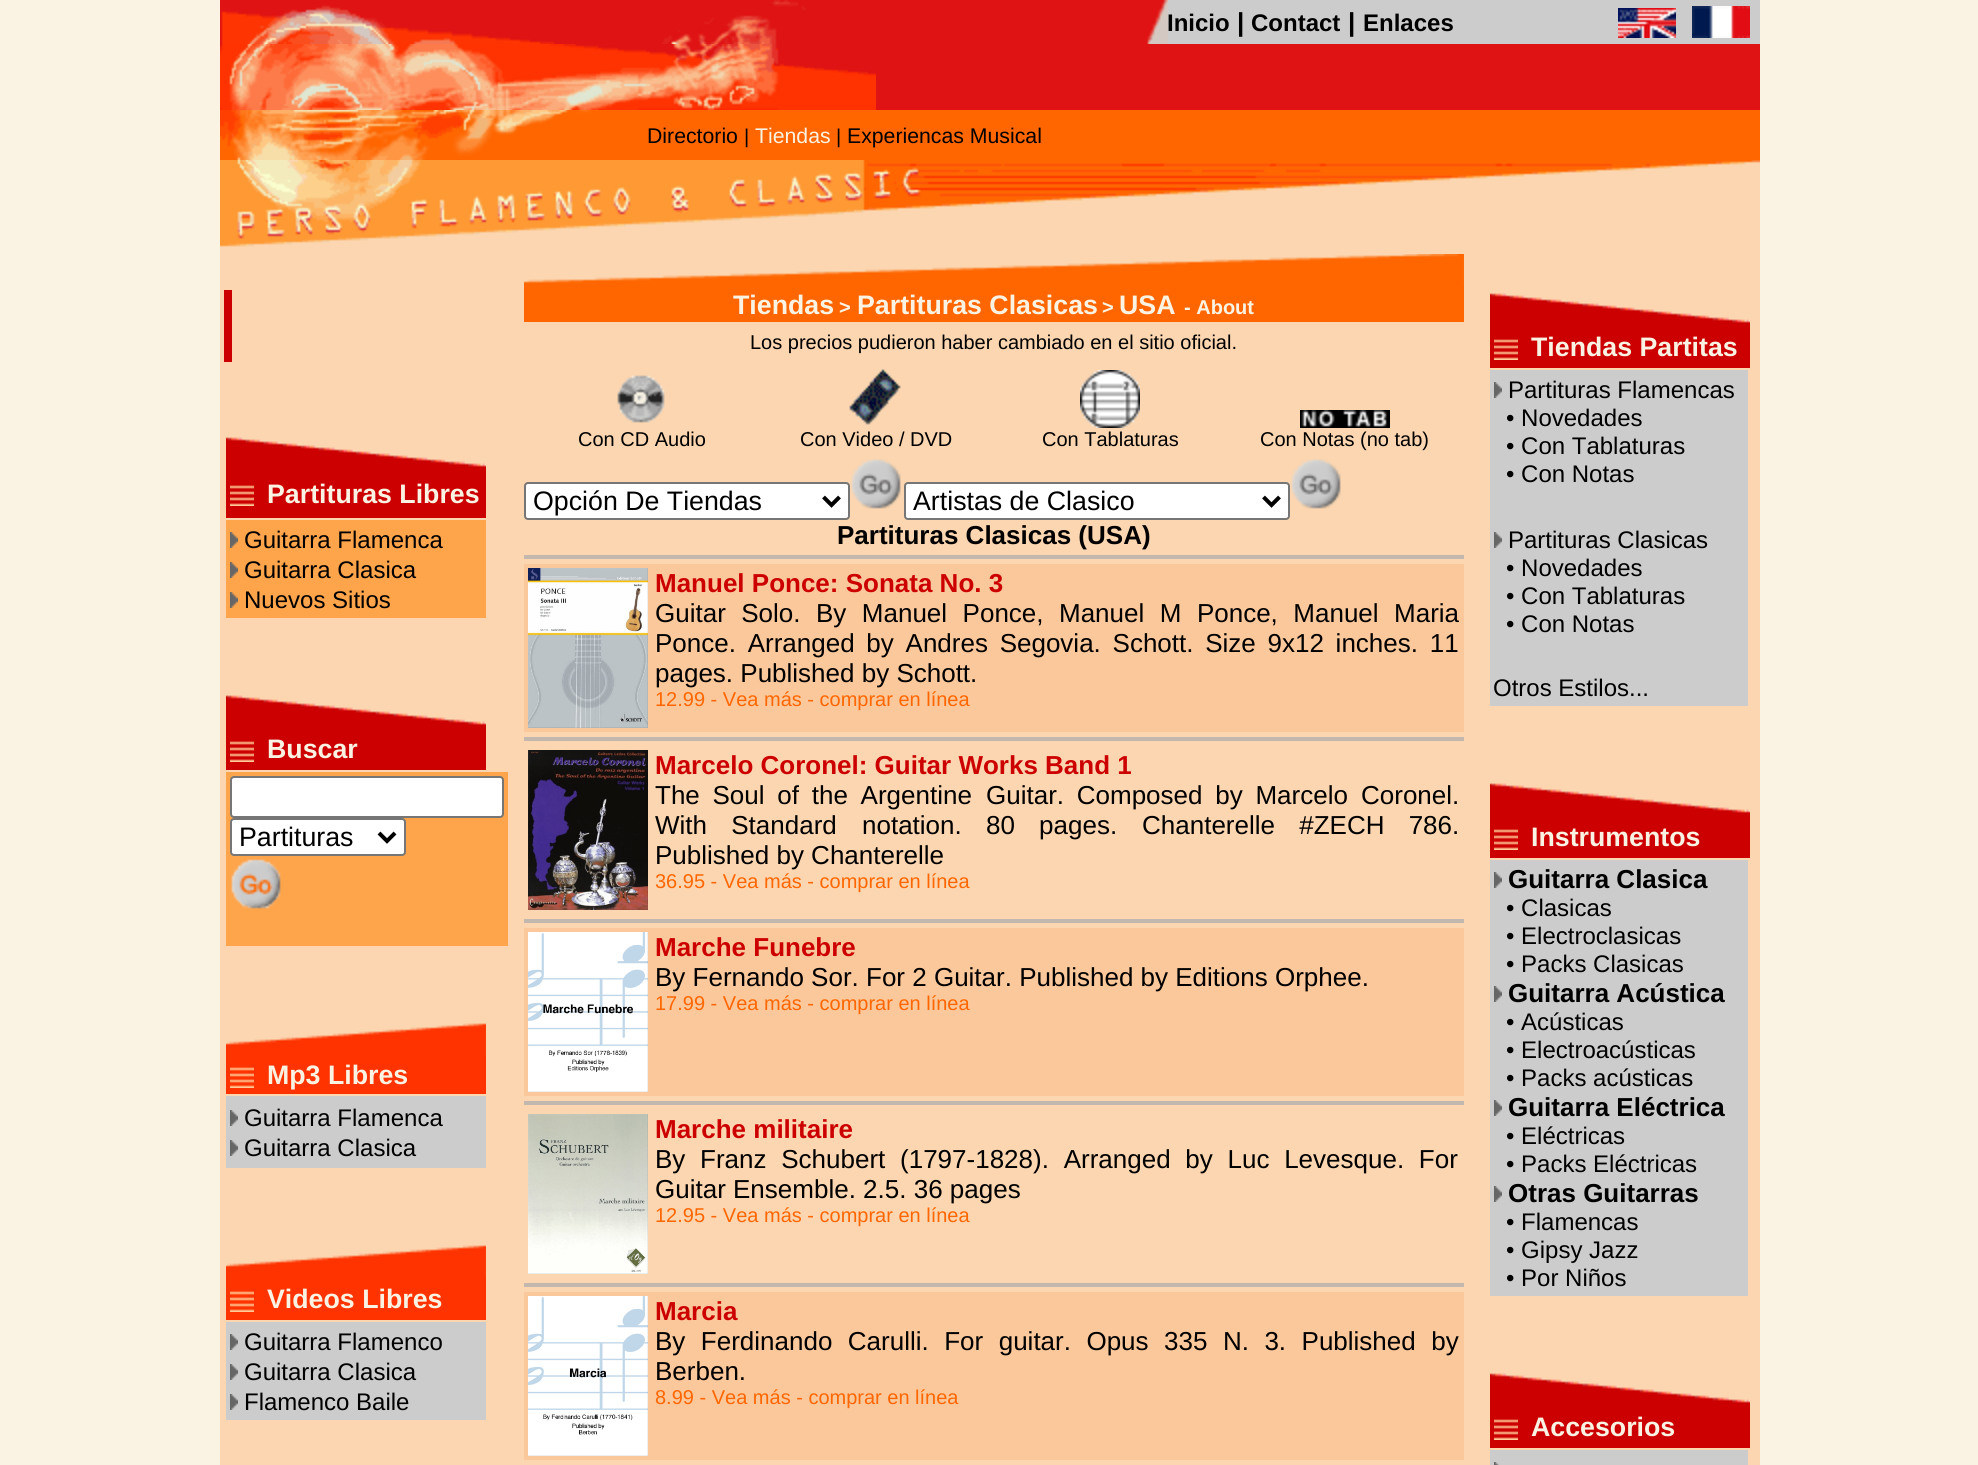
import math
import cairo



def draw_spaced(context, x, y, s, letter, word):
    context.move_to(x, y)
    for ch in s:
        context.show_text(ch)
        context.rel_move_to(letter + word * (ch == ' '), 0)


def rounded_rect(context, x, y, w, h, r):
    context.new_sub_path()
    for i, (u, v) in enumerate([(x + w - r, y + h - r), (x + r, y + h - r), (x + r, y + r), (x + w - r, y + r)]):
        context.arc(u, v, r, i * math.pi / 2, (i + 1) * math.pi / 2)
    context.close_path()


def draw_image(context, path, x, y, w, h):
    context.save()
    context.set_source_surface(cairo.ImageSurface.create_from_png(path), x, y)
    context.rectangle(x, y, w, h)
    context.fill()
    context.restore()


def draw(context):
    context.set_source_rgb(250 / 255, 243 / 255, 227 / 255)
    context.paint()
    context.set_source_rgb(251 / 255, 214 / 255, 176 / 255)
    context.rectangle(220, 247, 1540, 1218)
    context.fill()
    draw_image(context, "images/1.png", 220, 0, 948, 44)
    context.set_source_rgb(204 / 255, 204 / 255, 204 / 255)
    context.rectangle(1168, 0, 592, 44)
    context.fill()
    draw_image(context, "images/2.png", 1618, 8, 58, 30)
    draw_image(context, "images/3.png", 1692, 6, 58, 32)
    draw_image(context, "images/4.png", 220, 44, 656, 66)
    context.set_source_rgb(223 / 255, 19 / 255, 19 / 255)
    context.rectangle(876, 44, 884, 66)
    context.fill()
    draw_image(context, "images/5.png", 220, 110, 428, 50)
    context.set_source_rgb(1, 102 / 255, 0)
    context.rectangle(648, 110, 1112, 50)
    context.fill()
    draw_image(context, "images/6.png", 220, 160, 1540, 87)
    context.set_source_rgb(204 / 255, 0, 0)
    context.rectangle(224, 290, 8, 72)
    context.fill()
    draw_image(context, "images/7.png", 226, 437, 260, 33)
    context.rectangle(226, 470, 260, 48)
    context.fill()
    draw_image(context, "images/8.png", 230, 485, 24, 21)
    context.set_source_rgb(254 / 255, 165 / 255, 76 / 255)
    context.rectangle(226, 520, 260, 98)
    context.fill()
    draw_image(context, "images/9.png", 230, 532, 8, 16)
    draw_image(context, "images/9.png", 230, 562, 8, 16)
    draw_image(context, "images/9.png", 230, 592, 8, 16)
    draw_image(context, "images/7.png", 226, 695, 260, 33)
    context.set_source_rgb(204 / 255, 0, 0)
    context.rectangle(226, 728, 260, 42)
    context.fill()
    draw_image(context, "images/8.png", 230, 741, 24, 21)
    context.set_source_rgb(254 / 255, 165 / 255, 76 / 255)
    context.rectangle(226, 772, 282, 174)
    context.fill()
    context.set_source_rgb(1, 1, 1)
    rounded_rect(context, 231, 777, 272, 40, 3)
    context.fill_preserve()
    context.set_source_rgb(118 / 255, 118 / 255, 118 / 255)
    context.stroke()
    context.set_source_rgb(1, 1, 1)
    rounded_rect(context, 231, 819, 174, 36, 3)
    context.fill_preserve()
    context.set_source_rgb(118 / 255, 118 / 255, 118 / 255)
    context.stroke()
    context.new_path()
    context.move_to(379, 833)
    context.line_to(387, 841)
    context.line_to(395, 833)
    context.set_source_rgb(0, 0, 0)
    context.set_line_width(4)
    context.stroke()
    draw_image(context, "images/10.png", 231, 859, 50, 50)
    draw_image(context, "images/11.png", 226, 1023, 260, 33)
    context.set_source_rgb(1, 51 / 255, 0)
    context.rectangle(226, 1056, 260, 38)
    context.fill()
    draw_image(context, "images/12.png", 230, 1067, 24, 21)
    context.set_source_rgb(204 / 255, 204 / 255, 204 / 255)
    context.rectangle(226, 1096, 260, 72)
    context.fill()
    draw_image(context, "images/13.png", 230, 1110, 8, 16)
    draw_image(context, "images/13.png", 230, 1140, 8, 16)
    draw_image(context, "images/11.png", 226, 1245, 260, 33)
    context.set_source_rgb(1, 51 / 255, 0)
    context.rectangle(226, 1278, 260, 42)
    context.fill()
    draw_image(context, "images/12.png", 230, 1291, 24, 21)
    context.set_source_rgb(204 / 255, 204 / 255, 204 / 255)
    context.rectangle(226, 1322, 260, 98)
    context.fill()
    draw_image(context, "images/13.png", 230, 1334, 8, 16)
    draw_image(context, "images/13.png", 230, 1364, 8, 16)
    draw_image(context, "images/13.png", 230, 1394, 8, 16)
    draw_image(context, "images/14.png", 524, 254, 940, 32)
    context.set_source_rgb(1, 102 / 255, 0)
    context.rectangle(524, 286, 940, 36)
    context.fill()
    draw_image(context, "images/15.png", 617, 375, 48, 48)
    draw_image(context, "images/16.png", 849, 369, 52, 56)
    draw_image(context, "images/17.png", 1080, 370, 60, 58)
    draw_image(context, "images/18.png", 1300, 410, 90, 18)
    context.set_source_rgb(1, 1, 1)
    rounded_rect(context, 525, 483, 324, 36, 3)
    context.fill_preserve()
    context.set_source_rgb(118 / 255, 118 / 255, 118 / 255)
    context.set_line_width(2)
    context.stroke()
    context.new_path()
    context.move_to(823.5, 497)
    context.line_to(831.5, 505)
    context.line_to(839.5, 497)
    context.set_source_rgb(0, 0, 0)
    context.set_line_width(4)
    context.stroke()
    draw_image(context, "images/19.png", 851, 459, 50, 50)
    context.set_source_rgb(1, 1, 1)
    rounded_rect(context, 905, 483, 384, 36, 3)
    context.fill_preserve()
    context.set_source_rgb(118 / 255, 118 / 255, 118 / 255)
    context.set_line_width(2)
    context.stroke()
    context.new_path()
    context.move_to(1263.5, 497)
    context.line_to(1271.5, 505)
    context.line_to(1279.5, 497)
    context.set_source_rgb(0, 0, 0)
    context.set_line_width(4)
    context.stroke()
    draw_image(context, "images/19.png", 1291, 459, 50, 50)
    context.set_source_rgb(194 / 255, 184 / 255, 175 / 255)
    context.rectangle(524, 555, 940, 4)
    context.fill()
    context.set_source_rgb(251 / 255, 200 / 255, 155 / 255)
    context.rectangle(524, 564, 940, 168)
    context.fill()
    draw_image(context, "images/20.png", 528, 568, 120, 160)
    context.set_source_rgb(194 / 255, 184 / 255, 175 / 255)
    context.rectangle(524, 737, 940, 4)
    context.fill()
    draw_image(context, "images/21.png", 528, 750, 120, 160)
    context.rectangle(524, 919, 940, 4)
    context.fill()
    context.set_source_rgb(251 / 255, 200 / 255, 155 / 255)
    context.rectangle(524, 928, 940, 168)
    context.fill()
    draw_image(context, "images/22.png", 528, 932, 120, 160)
    context.set_source_rgb(194 / 255, 184 / 255, 175 / 255)
    context.rectangle(524, 1101, 940, 4)
    context.fill()
    draw_image(context, "images/23.png", 528, 1114, 120, 160)
    context.rectangle(524, 1283, 940, 4)
    context.fill()
    context.set_source_rgb(251 / 255, 200 / 255, 155 / 255)
    context.rectangle(524, 1292, 940, 168)
    context.fill()
    draw_image(context, "images/24.png", 528, 1296, 120, 160)
    draw_image(context, "images/25.png", 1490, 293, 260, 33)
    context.set_source_rgb(204 / 255, 0, 0)
    context.rectangle(1490, 326, 260, 42)
    context.fill()
    draw_image(context, "images/8.png", 1494, 339, 24, 21)
    context.set_source_rgb(204 / 255, 204 / 255, 204 / 255)
    context.rectangle(1490, 370, 258, 336)
    context.fill()
    draw_image(context, "images/13.png", 1494, 382, 8, 16)
    draw_image(context, "images/13.png", 1494, 532, 8, 16)
    draw_image(context, "images/25.png", 1490, 783, 260, 33)
    context.set_source_rgb(204 / 255, 0, 0)
    context.rectangle(1490, 816, 260, 42)
    context.fill()
    draw_image(context, "images/8.png", 1494, 829, 24, 21)
    context.set_source_rgb(204 / 255, 204 / 255, 204 / 255)
    context.rectangle(1490, 860, 258, 436)
    context.fill()
    draw_image(context, "images/13.png", 1494, 872, 8, 16)
    draw_image(context, "images/13.png", 1494, 986, 8, 16)
    draw_image(context, "images/13.png", 1494, 1100, 8, 16)
    draw_image(context, "images/13.png", 1494, 1186, 8, 16)
    draw_image(context, "images/25.png", 1490, 1373, 260, 33)
    context.set_source_rgb(204 / 255, 0, 0)
    context.rectangle(1490, 1406, 260, 42)
    context.fill()
    draw_image(context, "images/8.png", 1494, 1419, 24, 21)
    context.set_source_rgb(204 / 255, 204 / 255, 204 / 255)
    context.rectangle(1490, 1450, 258, 15)
    context.fill()
    draw_image(context, "images/26.png", 1494, 1462, 5, 3)
    context.select_font_face("Liberation Sans", cairo.FontSlant.NORMAL, cairo.FontWeight.BOLD)
    context.set_font_size(24)
    context.set_source_rgb(0, 0, 0)
    context.move_to(1167, 31)
    context.show_text("Inicio")
    context.set_font_size(26)
    context.move_to(1237, 31)
    context.show_text("|")
    context.set_font_size(24)
    context.move_to(1251, 31)
    context.show_text("Contact")
    context.set_font_size(26)
    context.move_to(1348, 31)
    context.show_text("|")
    context.set_font_size(24)
    context.move_to(1363, 31)
    context.show_text("Enlaces")
    context.select_font_face("Liberation Sans")
    context.set_font_size(21.25)
    context.move_to(647, 143)
    context.show_text("Directorio")
    context.set_font_size(20)
    context.move_to(744, 143)
    context.show_text("|")
    context.set_font_size(21.25)
    context.set_source_rgb(250 / 255, 243 / 255, 227 / 255)
    context.move_to(755, 143)
    context.show_text("Tiendas")
    context.set_font_size(20)
    context.set_source_rgb(0, 0, 0)
    context.move_to(836, 143)
    context.show_text("|")
    context.set_font_size(21.25)
    context.move_to(847, 143)
    context.show_text("Experiencas Musical")
    context.select_font_face("Liberation Sans", cairo.FontSlant.NORMAL, cairo.FontWeight.BOLD)
    context.set_font_size(26.75)
    context.set_source_rgb(250 / 255, 243 / 255, 227 / 255)
    context.move_to(267, 503)
    context.show_text("Partituras Libres")
    context.select_font_face("Liberation Sans")
    context.set_font_size(24)
    context.set_source_rgb(0, 0, 0)
    context.move_to(244, 548)
    context.show_text("Guitarra Flamenca")
    context.move_to(244, 578)
    context.show_text("Guitarra Clasica")
    context.move_to(244, 608)
    context.show_text("Nuevos Sitios")
    context.select_font_face("Liberation Sans", cairo.FontSlant.NORMAL, cairo.FontWeight.BOLD)
    context.set_font_size(26.75)
    context.set_source_rgb(250 / 255, 243 / 255, 227 / 255)
    context.move_to(267, 758)
    context.show_text("Buscar")
    context.select_font_face("Liberation Sans")
    context.set_source_rgb(0, 0, 0)
    context.move_to(239, 846)
    context.show_text("Partituras")
    context.select_font_face("Liberation Sans", cairo.FontSlant.NORMAL, cairo.FontWeight.BOLD)
    context.set_source_rgb(250 / 255, 243 / 255, 227 / 255)
    context.move_to(267, 1084)
    context.show_text("Mp3 Libres")
    context.select_font_face("Liberation Sans")
    context.set_font_size(24)
    context.set_source_rgb(0, 0, 0)
    context.move_to(244, 1126)
    context.show_text("Guitarra Flamenca")
    context.move_to(244, 1156)
    context.show_text("Guitarra Clasica")
    context.select_font_face("Liberation Sans", cairo.FontSlant.NORMAL, cairo.FontWeight.BOLD)
    context.set_font_size(26.75)
    context.set_source_rgb(250 / 255, 243 / 255, 227 / 255)
    context.move_to(267, 1308)
    context.show_text("Videos Libres")
    context.select_font_face("Liberation Sans")
    context.set_font_size(24)
    context.set_source_rgb(0, 0, 0)
    context.move_to(244, 1350)
    context.show_text("Guitarra Flamenco")
    context.move_to(244, 1380)
    context.show_text("Guitarra Clasica")
    context.move_to(244, 1410)
    context.show_text("Flamenco Baile")
    context.select_font_face("Liberation Sans", cairo.FontSlant.NORMAL, cairo.FontWeight.BOLD)
    context.set_font_size(26.75)
    context.set_source_rgb(250 / 255, 243 / 255, 227 / 255)
    context.move_to(733, 314)
    context.show_text("Tiendas")
    context.set_font_size(20)
    context.move_to(839, 314)
    context.show_text(">")
    context.set_font_size(26.75)
    context.move_to(857, 314)
    context.show_text("Partituras Clasicas")
    context.set_font_size(20)
    context.move_to(1102, 314)
    context.show_text(">")
    context.set_font_size(26.75)
    context.move_to(1119, 314)
    context.show_text("USA")
    context.set_font_size(20)
    context.move_to(1184, 314)
    context.show_text("- About")
    context.select_font_face("Liberation Sans")
    context.set_source_rgb(0, 0, 0)
    context.move_to(750, 349)
    context.show_text("Los precios pudieron haber cambiado en el sitio oficial.")
    context.move_to(578, 446)
    context.show_text("Con CD Audio")
    context.move_to(800, 446)
    context.show_text("Con Video / DVD")
    context.move_to(1042, 446)
    context.show_text("Con Tablaturas")
    context.move_to(1260, 446)
    context.show_text("Con Notas (no tab)")
    context.set_font_size(26.75)
    context.move_to(533, 510)
    context.show_text("Opción De Tiendas")
    context.move_to(913, 510)
    context.show_text("Artistas de Clasico")
    context.select_font_face("Liberation Sans", cairo.FontSlant.NORMAL, cairo.FontWeight.BOLD)
    context.set_font_size(26)
    context.move_to(837, 544)
    context.show_text("Partituras Clasicas (USA)")
    context.set_source_rgb(204 / 255, 0, 0)
    context.move_to(655, 592)
    context.show_text("Manuel Ponce: Sonata No. 3")
    context.select_font_face("Liberation Sans")
    context.set_source_rgb(0, 0, 0)
    draw_spaced(context, 655, 622, "Guitar Solo. By Manuel Ponce, Manuel M Ponce, Manuel Maria", 0, 8.25)
    draw_spaced(context, 655, 652, "Ponce. Arranged by Andres Segovia. Schott. Size 9x12 inches. 11", 0, 4.5)
    context.move_to(655, 682)
    context.show_text("pages. Published by Schott.")
    context.set_font_size(20)
    context.set_source_rgb(1, 102 / 255, 0)
    context.move_to(655, 706)
    context.show_text("12.99 - Vea más - comprar en línea")
    context.select_font_face("Liberation Sans", cairo.FontSlant.NORMAL, cairo.FontWeight.BOLD)
    context.set_font_size(26)
    context.set_source_rgb(204 / 255, 0, 0)
    context.move_to(655, 774)
    context.show_text("Marcelo Coronel: Guitar Works Band 1")
    context.select_font_face("Liberation Sans")
    context.set_source_rgb(0, 0, 0)
    draw_spaced(context, 655, 804, "The Soul of the Argentine", 0, 5.5)
    draw_spaced(context, 986, 804, "Guitar. Composed by Marcelo", 0, 5.5)
    context.move_to(1361, 804)
    context.show_text("Coronel.")
    draw_spaced(context, 655, 834, "With Standard", 0, 17)
    draw_spaced(context, 862, 834, "notation. 80 pages.", 0, 17)
    draw_spaced(context, 1142, 834, "Chanterelle #ZECH 786.", 0, 17)
    context.move_to(655, 864)
    context.show_text("Published by Chanterelle")
    context.set_font_size(20)
    context.set_source_rgb(1, 102 / 255, 0)
    context.move_to(655, 888)
    context.show_text("36.95 - Vea más - comprar en línea")
    context.select_font_face("Liberation Sans", cairo.FontSlant.NORMAL, cairo.FontWeight.BOLD)
    context.set_font_size(26)
    context.set_source_rgb(204 / 255, 0, 0)
    context.move_to(655, 956)
    context.show_text("Marche Funebre")
    context.select_font_face("Liberation Sans")
    context.set_source_rgb(0, 0, 0)
    context.move_to(655, 986)
    context.show_text("By Fernando Sor. For 2 Guitar. Published by Editions Orphee.")
    context.set_font_size(20)
    context.set_source_rgb(1, 102 / 255, 0)
    context.move_to(655, 1010)
    context.show_text("17.99 - Vea más - comprar en línea")
    context.select_font_face("Liberation Sans", cairo.FontSlant.NORMAL, cairo.FontWeight.BOLD)
    context.set_font_size(26)
    context.set_source_rgb(204 / 255, 0, 0)
    context.move_to(655, 1138)
    context.show_text("Marche militaire")
    context.select_font_face("Liberation Sans")
    context.set_source_rgb(0, 0, 0)
    draw_spaced(context, 655, 1168, "By Franz Schubert (1797-1828). Arranged by Luc Levesque. For", 0, 7.5)
    context.move_to(655, 1198)
    context.show_text("Guitar Ensemble. 2.5. 36 pages")
    context.set_font_size(20)
    context.set_source_rgb(1, 102 / 255, 0)
    context.move_to(655, 1222)
    context.show_text("12.95 - Vea más - comprar en línea")
    context.select_font_face("Liberation Sans", cairo.FontSlant.NORMAL, cairo.FontWeight.BOLD)
    context.set_font_size(26)
    context.set_source_rgb(204 / 255, 0, 0)
    context.move_to(655, 1320)
    context.show_text("Marcia")
    context.select_font_face("Liberation Sans")
    context.set_source_rgb(0, 0, 0)
    draw_spaced(context, 655, 1350, "By Ferdinando Carulli. For guitar. Opus 335 N. 3. Published by", 0, 8.25)
    context.move_to(655, 1380)
    context.show_text("Berben.")
    context.set_font_size(20)
    context.set_source_rgb(1, 102 / 255, 0)
    context.move_to(655, 1404)
    context.show_text("8.99 - Vea más - comprar en línea")
    context.select_font_face("Liberation Sans", cairo.FontSlant.NORMAL, cairo.FontWeight.BOLD)
    context.set_font_size(26.75)
    context.set_source_rgb(250 / 255, 243 / 255, 227 / 255)
    context.move_to(1531, 356)
    context.show_text("Tiendas Partitas")
    context.select_font_face("Liberation Sans")
    context.set_font_size(24)
    context.set_source_rgb(0, 0, 0)
    context.move_to(1508, 398)
    context.show_text("Partituras Flamencas")
    context.move_to(1506, 426)
    context.show_text("• Novedades")
    context.move_to(1506, 454)
    context.show_text("• Con Tablaturas")
    context.move_to(1506, 482)
    context.show_text("• Con Notas")
    context.move_to(1508, 548)
    context.show_text("Partituras Clasicas")
    context.move_to(1506, 576)
    context.show_text("• Novedades")
    context.move_to(1506, 604)
    context.show_text("• Con Tablaturas")
    context.move_to(1506, 632)
    context.show_text("• Con Notas")
    context.move_to(1493, 696)
    context.show_text("Otros Estilos...")
    context.select_font_face("Liberation Sans", cairo.FontSlant.NORMAL, cairo.FontWeight.BOLD)
    context.set_font_size(26.75)
    context.set_source_rgb(250 / 255, 243 / 255, 227 / 255)
    context.move_to(1531, 846)
    context.show_text("Instrumentos")
    context.set_font_size(26)
    context.set_source_rgb(0, 0, 0)
    context.move_to(1508, 888)
    context.show_text("Guitarra Clasica")
    context.select_font_face("Liberation Sans")
    context.set_font_size(24)
    context.move_to(1506, 916)
    context.show_text("• Clasicas")
    context.move_to(1506, 944)
    context.show_text("• Electroclasicas")
    context.move_to(1506, 972)
    context.show_text("• Packs Clasicas")
    context.select_font_face("Liberation Sans", cairo.FontSlant.NORMAL, cairo.FontWeight.BOLD)
    context.set_font_size(26)
    context.move_to(1508, 1002)
    context.show_text("Guitarra Acústica")
    context.select_font_face("Liberation Sans")
    context.set_font_size(24)
    context.move_to(1506, 1030)
    context.show_text("• Acústicas")
    context.move_to(1506, 1058)
    context.show_text("• Electroacústicas")
    context.move_to(1506, 1086)
    context.show_text("• Packs acústicas")
    context.select_font_face("Liberation Sans", cairo.FontSlant.NORMAL, cairo.FontWeight.BOLD)
    context.set_font_size(26)
    context.move_to(1508, 1116)
    context.show_text("Guitarra Eléctrica")
    context.select_font_face("Liberation Sans")
    context.set_font_size(24)
    context.move_to(1506, 1144)
    context.show_text("• Eléctricas")
    context.move_to(1506, 1172)
    context.show_text("• Packs Eléctricas")
    context.select_font_face("Liberation Sans", cairo.FontSlant.NORMAL, cairo.FontWeight.BOLD)
    context.set_font_size(26)
    context.move_to(1508, 1202)
    context.show_text("Otras Guitarras")
    context.select_font_face("Liberation Sans")
    context.set_font_size(24)
    context.move_to(1506, 1230)
    context.show_text("• Flamencas")
    context.move_to(1506, 1258)
    context.show_text("• Gipsy Jazz")
    context.move_to(1506, 1286)
    context.show_text("• Por Niños")
    context.select_font_face("Liberation Sans", cairo.FontSlant.NORMAL, cairo.FontWeight.BOLD)
    context.set_font_size(26.75)
    context.set_source_rgb(250 / 255, 243 / 255, 227 / 255)
    context.move_to(1531, 1436)
    context.show_text("Accesorios")


surface = cairo.ImageSurface(cairo.Format.RGB24, 1978, 1465)
context = cairo.Context(surface)
options = cairo.FontOptions()
options.set_hint_metrics(cairo.HintMetrics.OFF)
options.set_hint_style(cairo.HintStyle.NONE)
context.set_font_options(options)
context.set_miter_limit(4)
draw(context)
surface.write_to_png("out.png")
